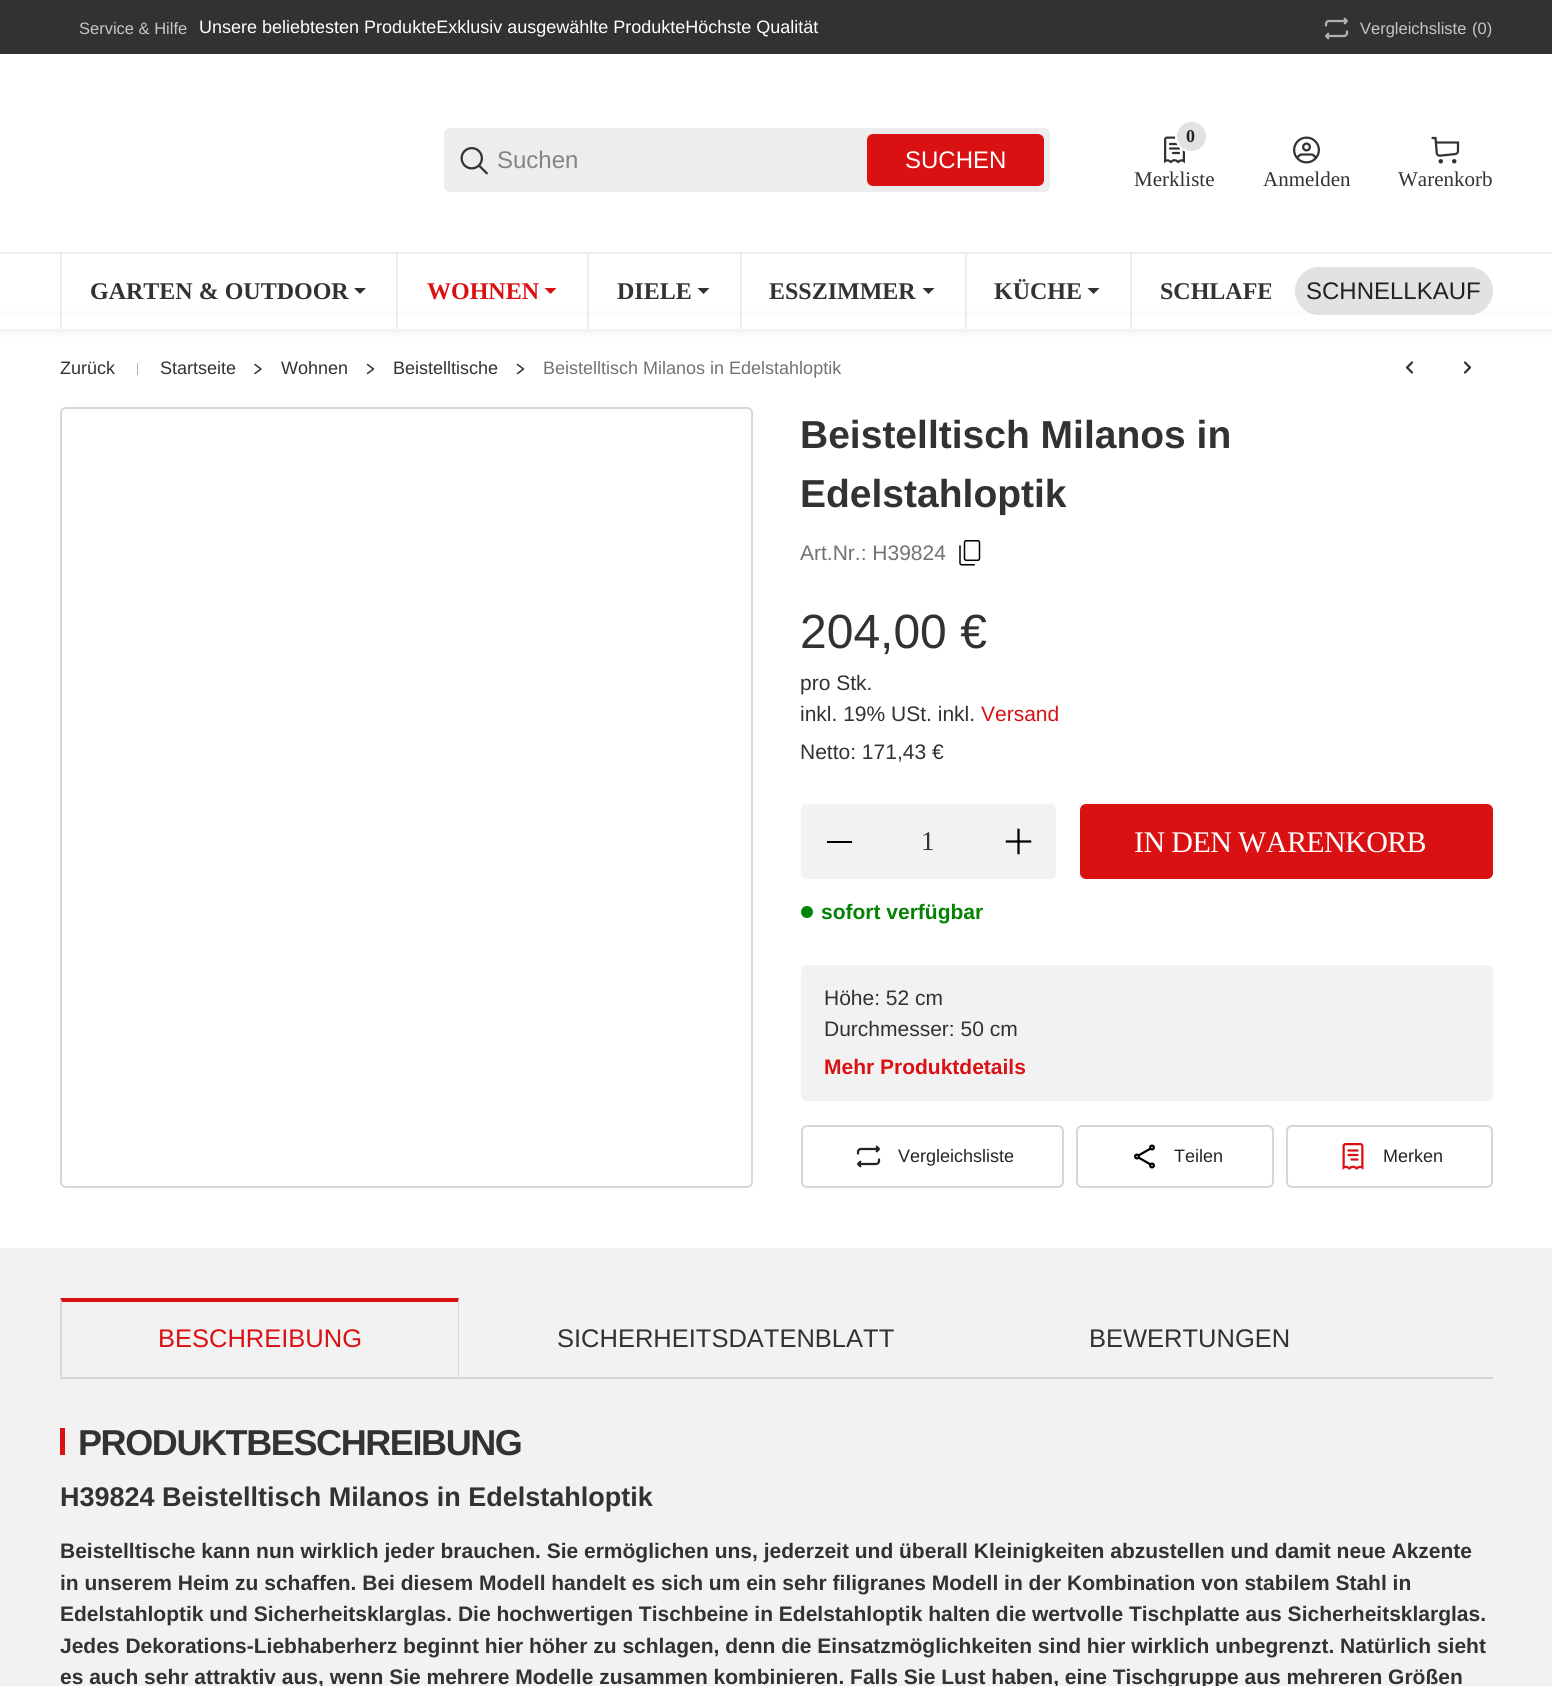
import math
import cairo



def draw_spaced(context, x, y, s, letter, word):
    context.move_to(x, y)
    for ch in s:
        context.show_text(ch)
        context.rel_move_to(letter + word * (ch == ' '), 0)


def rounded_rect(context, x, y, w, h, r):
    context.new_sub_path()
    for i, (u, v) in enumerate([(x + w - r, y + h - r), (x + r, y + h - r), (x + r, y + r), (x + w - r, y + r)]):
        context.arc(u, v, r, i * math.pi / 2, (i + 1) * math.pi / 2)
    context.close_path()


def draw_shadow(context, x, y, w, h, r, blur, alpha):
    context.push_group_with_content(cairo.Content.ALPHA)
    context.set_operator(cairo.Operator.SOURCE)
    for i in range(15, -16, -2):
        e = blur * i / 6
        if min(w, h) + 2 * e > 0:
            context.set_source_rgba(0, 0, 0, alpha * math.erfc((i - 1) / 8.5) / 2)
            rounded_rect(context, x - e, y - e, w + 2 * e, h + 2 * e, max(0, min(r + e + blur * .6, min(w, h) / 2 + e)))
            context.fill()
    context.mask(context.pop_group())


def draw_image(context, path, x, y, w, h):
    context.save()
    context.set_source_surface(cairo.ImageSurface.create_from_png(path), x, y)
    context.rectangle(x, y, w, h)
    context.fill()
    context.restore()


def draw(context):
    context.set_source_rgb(242 / 255, 242 / 255, 242 / 255)
    context.paint()
    context.set_source_rgb(50 / 255, 50 / 255, 50 / 255)
    context.rectangle(0, 0, 1552, 54)
    context.fill()
    draw_image(context, "images/1.png", 1324, 17, 25, 23)
    context.set_source_rgb(1, 1, 1)
    context.rectangle(0, 54, 1552, 198)
    context.fill()
    context.set_source_rgb(237 / 255, 237 / 255, 237 / 255)
    rounded_rect(context, 444, 128, 606, 64, 6)
    context.fill()
    draw_image(context, "images/2.png", 460, 147, 28, 28)
    context.set_source_rgb(218 / 255, 17 / 255, 18 / 255)
    rounded_rect(context, 868, 135, 175, 50, 5)
    context.fill_preserve()
    context.stroke()
    draw_image(context, "images/3.png", 1164, 136, 21, 28)
    context.set_source_rgb(226 / 255, 226 / 255, 226 / 255)
    context.arc(1191.5, 136.5, 15.5, 0, 2 * math.pi)
    context.fill_preserve()
    context.set_source_rgb(1, 1, 1)
    context.stroke()
    draw_image(context, "images/4.png", 1293, 136, 27, 28)
    draw_image(context, "images/5.png", 1431, 136, 29, 28)
    context.set_source_rgb(237 / 255, 237 / 255, 237 / 255)
    context.rectangle(0, 252, 1552, 2)
    context.fill()
    context.set_source_rgb(1, 1, 1)
    context.rectangle(0, 254, 1552, 153)
    context.fill()
    context.set_source_rgb(237 / 255, 237 / 255, 237 / 255)
    context.rectangle(60, 254, 2, 75)
    context.fill()
    context.set_source_rgb(50 / 255, 50 / 255, 50 / 255)
    context.new_path()
    context.move_to(354, 288)
    context.line_to(366, 288)
    context.line_to(360, 294)
    context.close_path()
    context.fill()
    context.set_source_rgb(237 / 255, 237 / 255, 237 / 255)
    context.rectangle(396, 254, 2, 75)
    context.fill()
    context.set_source_rgb(218 / 255, 17 / 255, 18 / 255)
    context.new_path()
    context.move_to(544.5, 288)
    context.line_to(556.5, 288)
    context.line_to(550.5, 294)
    context.close_path()
    context.fill()
    context.set_source_rgb(237 / 255, 237 / 255, 237 / 255)
    context.rectangle(587, 254, 2, 75)
    context.fill()
    context.set_source_rgb(50 / 255, 50 / 255, 50 / 255)
    context.new_path()
    context.move_to(697.5, 288)
    context.line_to(709.5, 288)
    context.line_to(703.5, 294)
    context.close_path()
    context.fill()
    context.set_source_rgb(237 / 255, 237 / 255, 237 / 255)
    context.rectangle(740, 254, 2, 75)
    context.fill()
    context.set_source_rgb(50 / 255, 50 / 255, 50 / 255)
    context.new_path()
    context.move_to(922.5, 288)
    context.line_to(934.5, 288)
    context.line_to(928.5, 294)
    context.close_path()
    context.fill()
    context.set_source_rgb(237 / 255, 237 / 255, 237 / 255)
    context.rectangle(965, 254, 2, 75)
    context.fill()
    context.set_source_rgb(50 / 255, 50 / 255, 50 / 255)
    context.new_path()
    context.move_to(1087.5, 288)
    context.line_to(1099.5, 288)
    context.line_to(1093.5, 294)
    context.close_path()
    context.fill()
    context.set_source_rgb(237 / 255, 237 / 255, 237 / 255)
    context.rectangle(1130, 254, 2, 75)
    context.fill()
    context.set_source_rgb(226 / 255, 226 / 255, 226 / 255)
    rounded_rect(context, 1295, 267, 198, 48, 24)
    context.fill()
    context.save()
    context.set_fill_rule(cairo.FillRule.EVEN_ODD)
    context.new_path()
    context.move_to(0, 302)
    context.line_to(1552, 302)
    context.line_to(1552, 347)
    context.line_to(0, 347)
    context.close_path()
    context.move_to(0, 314)
    context.line_to(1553, 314)
    context.line_to(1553, 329)
    context.line_to(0, 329)
    context.close_path()
    context.clip()
    context.set_source_rgb(0, 0, 0)
    draw_shadow(context, 0, 317, 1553, 15, 0, 4.5, 0.07)
    context.restore()
    context.set_source_rgb(177 / 255, 177 / 255, 177 / 255)
    context.rectangle(137, 363, 1, 12)
    context.fill()
    context.new_path()
    context.move_to(255, 373.5)
    context.line_to(261, 369)
    context.line_to(255, 364.5)
    context.set_source_rgb(50 / 255, 50 / 255, 50 / 255)
    context.set_line_width(1.5)
    context.set_line_cap(cairo.LineCap.ROUND)
    context.set_line_join(cairo.LineJoin.ROUND)
    context.stroke()
    context.new_path()
    context.move_to(367.5, 373.5)
    context.line_to(373.5, 369)
    context.line_to(367.5, 364.5)
    context.stroke()
    context.new_path()
    context.move_to(517.5, 373.5)
    context.line_to(523.5, 369)
    context.line_to(517.5, 364.5)
    context.stroke()
    context.new_path()
    context.move_to(1412, 372.5)
    context.line_to(1407, 367.5)
    context.line_to(1412, 362.5)
    context.set_line_width(2.2)
    context.stroke()
    context.new_path()
    context.move_to(1465, 372.5)
    context.line_to(1470, 367.5)
    context.line_to(1465, 362.5)
    context.stroke()
    context.set_source_rgb(1, 1, 1)
    context.rectangle(0, 407, 1552, 841)
    context.fill()
    rounded_rect(context, 61, 408, 691, 779, 5)
    context.set_source_rgb(215 / 255, 215 / 255, 215 / 255)
    context.set_line_width(2)
    context.set_line_cap(cairo.LineCap.BUTT)
    context.set_line_join(cairo.LineJoin.MITER)
    context.stroke()
    draw_image(context, "images/6.png", 959, 540, 22, 26)
    context.set_source_rgb(242 / 255, 242 / 255, 242 / 255)
    rounded_rect(context, 802, 805, 253, 73, 5)
    context.fill_preserve()
    context.stroke()
    context.set_source_rgb(0, 0, 0)
    context.rectangle(827, 841, 25, 2)
    context.fill()
    draw_image(context, "images/7.png", 1005, 828, 27, 27)
    context.set_source_rgb(218 / 255, 17 / 255, 18 / 255)
    rounded_rect(context, 1081, 805, 411, 73, 5)
    context.fill_preserve()
    context.stroke()
    context.set_source_rgb(2 / 255, 131 / 255, 4 / 255)
    context.arc(807, 912, 6, 0, 2 * math.pi)
    context.fill()
    context.set_source_rgb(242 / 255, 242 / 255, 242 / 255)
    rounded_rect(context, 801, 965, 692, 136, 6)
    context.fill()
    rounded_rect(context, 802, 1126, 261, 61, 5)
    context.set_source_rgb(215 / 255, 215 / 255, 215 / 255)
    context.stroke()
    draw_image(context, "images/8.png", 856, 1145, 25, 23)
    rounded_rect(context, 1077, 1126, 196, 61, 5)
    context.stroke()
    draw_image(context, "images/9.png", 1134, 1144, 21, 25)
    rounded_rect(context, 1287, 1126, 205, 61, 5)
    context.stroke()
    draw_image(context, "images/10.png", 1342, 1143, 22, 27)
    context.rectangle(60, 1377, 1433, 2)
    context.fill()
    context.set_source_rgb(218 / 255, 17 / 255, 18 / 255)
    context.new_path()
    context.move_to(60, 1298)
    context.line_to(459, 1298)
    context.line_to(458, 1302)
    context.line_to(62, 1302)
    context.close_path()
    context.fill()
    context.set_source_rgb(215 / 255, 215 / 255, 215 / 255)
    context.new_path()
    context.move_to(459, 1298)
    context.line_to(459, 1377)
    context.line_to(458, 1376)
    context.line_to(458, 1302)
    context.close_path()
    context.fill()
    context.new_path()
    context.move_to(60, 1377)
    context.line_to(60, 1298)
    context.line_to(62, 1302)
    context.line_to(62, 1376)
    context.close_path()
    context.fill()
    context.set_source_rgb(218 / 255, 17 / 255, 18 / 255)
    context.rectangle(60, 1428, 5, 27)
    context.fill()
    context.select_font_face("Liberation Sans")
    context.set_font_size(16.5)
    context.set_source_rgb(198 / 255, 198 / 255, 198 / 255)
    context.move_to(79, 34)
    context.show_text("Service & Hilfe")
    context.set_font_size(18)
    context.set_source_rgb(1, 1, 1)
    context.move_to(199, 33)
    context.show_text("Unsere beliebtesten ProdukteExklusiv ausgewählte ProdukteHöchste Qualität")
    context.set_font_size(16.5)
    context.set_source_rgb(198 / 255, 198 / 255, 198 / 255)
    context.move_to(1360, 34)
    context.show_text("Vergleichsliste")
    context.move_to(1472, 34)
    context.show_text("(0)")
    context.set_font_size(24)
    context.set_source_rgb(132 / 255, 132 / 255, 132 / 255)
    context.move_to(497, 168)
    context.show_text("Suchen")
    context.set_source_rgb(1, 1, 1)
    context.move_to(905, 168)
    context.show_text("SUCHEN")
    context.select_font_face("Liberation Serif", cairo.FontSlant.NORMAL, cairo.FontWeight.BOLD)
    context.set_font_size(18)
    context.set_source_rgb(34 / 255, 34 / 255, 34 / 255)
    context.move_to(1186, 142)
    context.show_text("0")
    context.select_font_face("Liberation Serif")
    context.set_font_size(21)
    context.set_source_rgb(50 / 255, 50 / 255, 50 / 255)
    context.move_to(1134, 186)
    context.show_text("Merkliste")
    context.move_to(1263, 186)
    context.show_text("Anmelden")
    context.move_to(1398, 186)
    context.show_text("Warenkorb")
    context.select_font_face("Liberation Serif", cairo.FontSlant.NORMAL, cairo.FontWeight.BOLD)
    context.set_font_size(24)
    context.move_to(90, 299)
    context.show_text("GARTEN & OUTDOOR")
    context.set_source_rgb(218 / 255, 17 / 255, 18 / 255)
    context.move_to(427, 299)
    context.show_text("WOHNEN")
    context.set_source_rgb(50 / 255, 50 / 255, 50 / 255)
    context.move_to(617, 299)
    context.show_text("DIELE")
    context.move_to(769, 299)
    context.show_text("ESSZIMMER")
    context.move_to(994, 299)
    context.show_text("KÜCHE")
    context.save()
    context.rectangle(60, 254, 1211, 75)
    context.clip()
    context.move_to(1160, 299)
    context.show_text("SCHLAFE")
    context.restore()
    context.select_font_face("Liberation Sans")
    context.set_source_rgb(34 / 255, 34 / 255, 34 / 255)
    context.move_to(1306, 299)
    context.show_text("SCHNELLKAUF")
    context.set_font_size(18)
    context.set_source_rgb(50 / 255, 50 / 255, 50 / 255)
    context.move_to(60, 374)
    context.show_text("Zurück")
    context.move_to(160, 374)
    context.show_text("Startseite")
    context.move_to(281, 374)
    context.show_text("Wohnen")
    context.move_to(393, 374)
    context.show_text("Beistelltische")
    context.set_source_rgb(114 / 255, 114 / 255, 114 / 255)
    context.move_to(543, 374)
    context.show_text("Beistelltisch Milanos in Edelstahloptik")
    context.select_font_face("Liberation Sans", cairo.FontSlant.NORMAL, cairo.FontWeight.BOLD)
    context.set_font_size(39)
    context.set_source_rgb(50 / 255, 50 / 255, 50 / 255)
    context.move_to(800, 448)
    context.show_text("Beistelltisch Milanos in")
    context.move_to(800, 507)
    context.show_text("Edelstahloptik")
    context.select_font_face("Liberation Sans")
    context.set_font_size(21)
    context.set_source_rgb(114 / 255, 114 / 255, 114 / 255)
    context.move_to(800, 560)
    context.show_text("Art.Nr.: H39824")
    context.set_font_size(48)
    context.set_source_rgb(50 / 255, 50 / 255, 50 / 255)
    context.move_to(800, 648)
    context.show_text("204,00 €")
    context.set_font_size(21)
    context.move_to(800, 690)
    context.show_text("pro Stk.")
    context.move_to(800, 721)
    context.show_text("inkl. 19% USt. inkl.")
    context.set_source_rgb(218 / 255, 17 / 255, 18 / 255)
    context.move_to(981, 721)
    context.show_text("Versand")
    context.set_source_rgb(50 / 255, 50 / 255, 50 / 255)
    context.move_to(800, 759)
    context.show_text("Netto: 171,43 €")
    context.select_font_face("Liberation Serif")
    context.set_font_size(27)
    context.move_to(921, 850)
    context.show_text("1")
    context.set_font_size(30)
    context.set_source_rgb(1, 1, 1)
    draw_spaced(context, 1134, 852, "IN DEN WARENKORB", -0.6, 0)
    context.select_font_face("Liberation Sans", cairo.FontSlant.NORMAL, cairo.FontWeight.BOLD)
    context.set_font_size(21)
    context.set_source_rgb(2 / 255, 131 / 255, 4 / 255)
    context.move_to(821, 919)
    context.show_text("sofort verfügbar")
    context.select_font_face("Liberation Sans")
    context.set_source_rgb(50 / 255, 50 / 255, 50 / 255)
    context.move_to(824, 1005)
    context.show_text("Höhe: 52 cm")
    context.move_to(824, 1036)
    context.show_text("Durchmesser: 50 cm")
    context.select_font_face("Liberation Sans", cairo.FontSlant.NORMAL, cairo.FontWeight.BOLD)
    context.set_source_rgb(218 / 255, 17 / 255, 18 / 255)
    context.move_to(824, 1074)
    context.show_text("Mehr Produktdetails")
    context.select_font_face("Liberation Sans")
    context.set_font_size(18)
    context.set_source_rgb(33 / 255, 37 / 255, 41 / 255)
    context.move_to(898, 1162)
    context.show_text("Vergleichsliste")
    context.move_to(1174, 1162)
    context.show_text("Teilen")
    context.move_to(1383, 1162)
    context.show_text("Merken")
    context.set_font_size(25.5)
    context.set_source_rgb(218 / 255, 17 / 255, 18 / 255)
    context.move_to(158, 1347)
    context.show_text("BESCHREIBUNG")
    context.set_source_rgb(50 / 255, 50 / 255, 50 / 255)
    context.move_to(557, 1347)
    context.show_text("SICHERHEITSDATENBLATT")
    context.move_to(1089, 1347)
    context.show_text("BEWERTUNGEN")
    context.select_font_face("Liberation Sans", cairo.FontSlant.NORMAL, cairo.FontWeight.BOLD)
    context.set_font_size(36)
    draw_spaced(context, 78, 1455, "PRODUKTBESCHREIBUNG", -1.4, 0)
    context.set_font_size(27)
    context.move_to(60, 1506)
    context.show_text("H39824 Beistelltisch Milanos in Edelstahloptik")
    context.set_font_size(21)
    context.move_to(60, 1558)
    context.show_text("Beistelltische kann nun wirklich jeder brauchen. Sie ermöglichen uns, jederzeit und überall Kleinigkeiten abzustellen und damit neue Akzente")
    context.move_to(60, 1590)
    context.show_text("in unserem Heim zu schaffen. Bei diesem Modell handelt es sich um ein sehr filigranes Modell in der Kombination von stabilem Stahl in")
    context.move_to(60, 1621)
    context.show_text("Edelstahloptik und Sicherheitsklarglas. Die hochwertigen Tischbeine in Edelstahloptik halten die wertvolle Tischplatte aus Sicherheitsklarglas.")
    context.move_to(60, 1653)
    context.show_text("Jedes Dekorations-Liebhaberherz beginnt hier höher zu schlagen, denn die Einsatzmöglichkeiten sind hier wirklich unbegrenzt. Natürlich sieht")
    context.move_to(60, 1684)
    context.show_text("es auch sehr attraktiv aus, wenn Sie mehrere Modelle zusammen kombinieren. Falls Sie Lust haben, eine Tischgruppe aus mehreren Größen")


surface = cairo.ImageSurface(cairo.Format.RGB24, 1552, 1686)
context = cairo.Context(surface)
options = cairo.FontOptions()
options.set_hint_metrics(cairo.HintMetrics.OFF)
options.set_hint_style(cairo.HintStyle.NONE)
context.set_font_options(options)
context.set_miter_limit(4)
draw(context)
surface.write_to_png("out.png")
